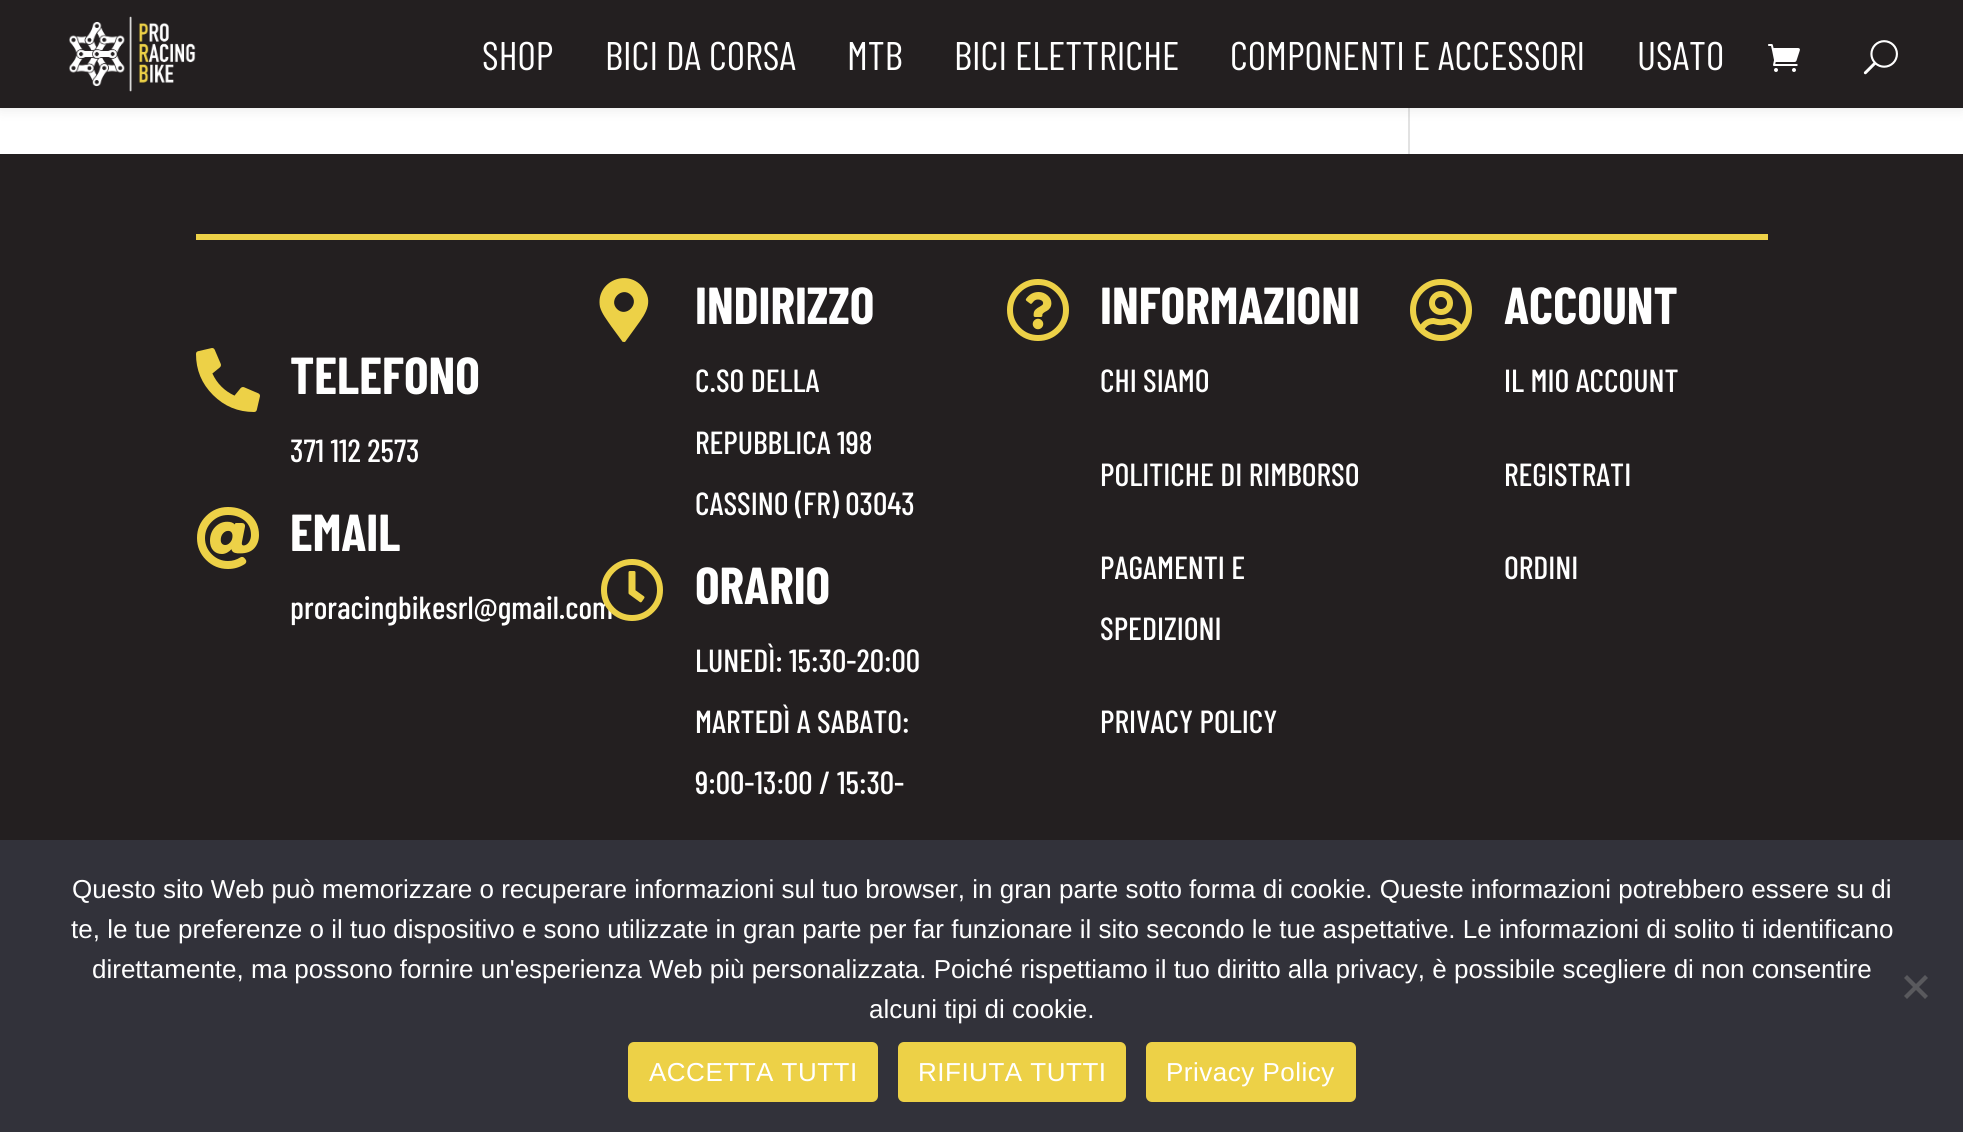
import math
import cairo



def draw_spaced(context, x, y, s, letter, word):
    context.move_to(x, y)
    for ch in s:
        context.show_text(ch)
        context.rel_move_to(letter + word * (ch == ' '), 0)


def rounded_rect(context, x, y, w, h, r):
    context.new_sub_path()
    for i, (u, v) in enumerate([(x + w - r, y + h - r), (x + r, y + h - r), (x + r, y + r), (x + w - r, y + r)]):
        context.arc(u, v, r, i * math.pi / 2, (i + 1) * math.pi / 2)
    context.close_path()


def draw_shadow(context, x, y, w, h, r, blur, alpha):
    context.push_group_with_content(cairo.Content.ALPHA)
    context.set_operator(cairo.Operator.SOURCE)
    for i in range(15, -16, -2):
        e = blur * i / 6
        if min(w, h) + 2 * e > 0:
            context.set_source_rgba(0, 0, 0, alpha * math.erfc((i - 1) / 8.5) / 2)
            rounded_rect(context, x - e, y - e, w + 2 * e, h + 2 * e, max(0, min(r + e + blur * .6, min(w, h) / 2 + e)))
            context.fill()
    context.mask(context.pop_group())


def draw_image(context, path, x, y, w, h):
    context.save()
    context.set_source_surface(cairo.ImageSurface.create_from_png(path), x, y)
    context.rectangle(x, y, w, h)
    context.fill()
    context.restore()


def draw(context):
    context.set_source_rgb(1, 1, 1)
    context.paint()
    context.set_source_rgb(226 / 255, 226 / 255, 226 / 255)
    context.rectangle(1408, 108, 2, 46)
    context.fill()
    context.set_source_rgb(0, 0, 0)
    draw_shadow(context, 0, 0, 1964, 108, 0, 7, 0.1)
    context.set_source_rgb(35 / 255, 31 / 255, 32 / 255)
    context.rectangle(0, 0, 1963, 108)
    context.fill()
    draw_image(context, "images/1.png", 69, 16, 127, 76)
    draw_image(context, "images/2.png", 1768, 44, 32, 28)
    draw_image(context, "images/3.png", 1863, 40, 35, 35)
    context.rectangle(0, 154, 1963, 686)
    context.fill()
    context.set_source_rgb(237 / 255, 209 / 255, 71 / 255)
    context.rectangle(196, 234, 1572, 6)
    context.fill()
    draw_image(context, "images/4.png", 196, 348, 64, 64)
    draw_image(context, "images/5.png", 197, 507, 62, 62)
    context.new_path()
    context.move_to(622, 341)
    context.line_to(611, 326)
    context.curve_to(607, 320, 602, 314, 600, 307)
    context.curve_to(595, 281, 629, 267, 644, 289)
    context.curve_to(655, 305, 642, 318, 633, 331)
    context.line_to(625, 342)
    context.curve_to(624, 342, 622, 342, 622, 341)
    context.close_path()
    context.move_to(617, 309)
    context.curve_to(626, 318, 640, 304, 631, 295)
    context.curve_to(622, 286, 608, 300, 617, 309)
    context.close_path()
    context.fill()
    draw_image(context, "images/7.png", 1007, 279, 62, 62)
    draw_image(context, "images/8.png", 1410, 279, 62, 62)
    context.set_source_rgb(50 / 255, 50 / 255, 58 / 255)
    context.rectangle(0, 840, 1963, 292)
    context.fill()
    context.set_source_rgb(89 / 255, 89 / 255, 93 / 255)
    context.new_path()
    context.move_to(1925, 975)
    context.line_to(1928, 978)
    context.line_to(1907, 999)
    context.line_to(1904, 996)
    context.close_path()
    context.fill()
    context.new_path()
    context.move_to(1904, 978)
    context.line_to(1907, 975)
    context.line_to(1928, 996)
    context.line_to(1925, 999)
    context.close_path()
    context.fill()
    context.set_source_rgb(237 / 255, 209 / 255, 71 / 255)
    rounded_rect(context, 628, 1042, 250, 60, 6)
    context.fill()
    rounded_rect(context, 898, 1042, 228, 60, 6)
    context.fill()
    rounded_rect(context, 1146, 1042, 210, 60, 6)
    context.fill()
    context.select_font_face("Barlow Condensed")
    context.set_font_size(40)
    context.set_source_rgb(1, 1, 1)
    context.move_to(482, 70)
    context.show_text("SHOP")
    context.move_to(605, 70)
    context.show_text("BICI DA CORSA")
    context.move_to(847, 70)
    context.show_text("MTB")
    context.move_to(954, 70)
    context.show_text("BICI ELETTRICHE")
    context.move_to(1230, 70)
    context.show_text("COMPONENTI E ACCESSORI")
    context.move_to(1637, 70)
    context.show_text("USATO")
    context.select_font_face("Barlow Condensed", cairo.FontSlant.NORMAL, cairo.FontWeight.BOLD)
    context.set_font_size(52)
    context.move_to(290, 394)
    context.show_text("TELEFONO")
    context.select_font_face("Barlow Condensed Medium")
    context.set_font_size(32)
    context.move_to(290, 462)
    context.show_text("371 112 2573")
    context.select_font_face("Barlow Condensed", cairo.FontSlant.NORMAL, cairo.FontWeight.BOLD)
    context.set_font_size(52)
    context.move_to(290, 551)
    context.show_text("EMAIL")
    context.select_font_face("Barlow Condensed Medium")
    context.set_font_size(32)
    context.move_to(290, 619)
    context.show_text("proracingbikesrl@gmail.com")
    context.select_font_face("Barlow Condensed", cairo.FontSlant.NORMAL, cairo.FontWeight.BOLD)
    context.set_font_size(52)
    context.move_to(695, 324)
    context.show_text("INDIRIZZO")
    context.select_font_face("Barlow Condensed Medium")
    context.set_font_size(32)
    context.move_to(695, 392)
    context.show_text("C.SO DELLA")
    context.move_to(695, 454)
    context.show_text("REPUBBLICA 198")
    context.move_to(695, 515)
    context.show_text("CASSINO (FR) 03043")
    draw_image(context, "images/6.png", 601, 559, 62, 62)
    context.select_font_face("Barlow Condensed", cairo.FontSlant.NORMAL, cairo.FontWeight.BOLD)
    context.set_font_size(52)
    context.move_to(695, 604)
    context.show_text("ORARIO")
    context.select_font_face("Barlow Condensed Medium")
    context.set_font_size(32)
    context.move_to(695, 672)
    context.show_text("LUNEDÌ: 15:30-20:00")
    context.move_to(695, 733)
    context.show_text("MARTEDÌ A SABATO:")
    context.move_to(695, 794)
    context.show_text("9:00-13:00 / 15:30-")
    context.select_font_face("Barlow Condensed", cairo.FontSlant.NORMAL, cairo.FontWeight.BOLD)
    context.set_font_size(52)
    context.move_to(1100, 324)
    context.show_text("INFORMAZIONI")
    context.select_font_face("Barlow Condensed Medium")
    context.set_font_size(32)
    context.move_to(1100, 392)
    context.show_text("CHI SIAMO")
    context.move_to(1100, 486)
    context.show_text("POLITICHE DI RIMBORSO")
    context.move_to(1100, 579)
    context.show_text("PAGAMENTI E")
    context.move_to(1100, 640)
    context.show_text("SPEDIZIONI")
    context.move_to(1100, 733)
    context.show_text("PRIVACY POLICY")
    context.select_font_face("Barlow Condensed", cairo.FontSlant.NORMAL, cairo.FontWeight.BOLD)
    context.set_font_size(52)
    context.move_to(1504, 324)
    context.show_text("ACCOUNT")
    context.select_font_face("Barlow Condensed Medium")
    context.set_font_size(32)
    context.move_to(1504, 392)
    context.show_text("IL MIO ACCOUNT")
    context.move_to(1504, 486)
    context.show_text("REGISTRATI")
    context.move_to(1504, 579)
    context.show_text("ORDINI")
    context.select_font_face("Liberation Sans")
    context.set_font_size(26)
    context.move_to(72, 898)
    context.show_text("Questo sito Web può memorizzare o recuperare informazioni sul tuo browser, in gran parte sotto forma di cookie. Queste informazioni potrebbero essere su di")
    context.move_to(71, 938)
    context.show_text("te, le tue preferenze o il tuo dispositivo e sono utilizzate in gran parte per far funzionare il sito secondo le tue aspettative. Le informazioni di solito ti identificano")
    context.move_to(92, 978)
    context.show_text("direttamente, ma possono fornire un'esperienza Web più personalizzata. Poiché rispettiamo il tuo diritto alla privacy, è possibile scegliere di non consentire")
    context.move_to(869, 1018)
    context.show_text("alcuni tipi di cookie.")
    draw_spaced(context, 649, 1081, "ACCETTA TUTTI", 0.5, 0)
    draw_spaced(context, 918, 1081, "RIFIUTA TUTTI", 0.5, 0)
    draw_spaced(context, 1166, 1081, "Privacy Policy", 0.5, 0)


surface = cairo.ImageSurface(cairo.Format.RGB24, 1963, 1132)
context = cairo.Context(surface)
options = cairo.FontOptions()
options.set_hint_metrics(cairo.HintMetrics.OFF)
options.set_hint_style(cairo.HintStyle.NONE)
context.set_font_options(options)
context.set_miter_limit(4)
draw(context)
surface.write_to_png("out.png")
